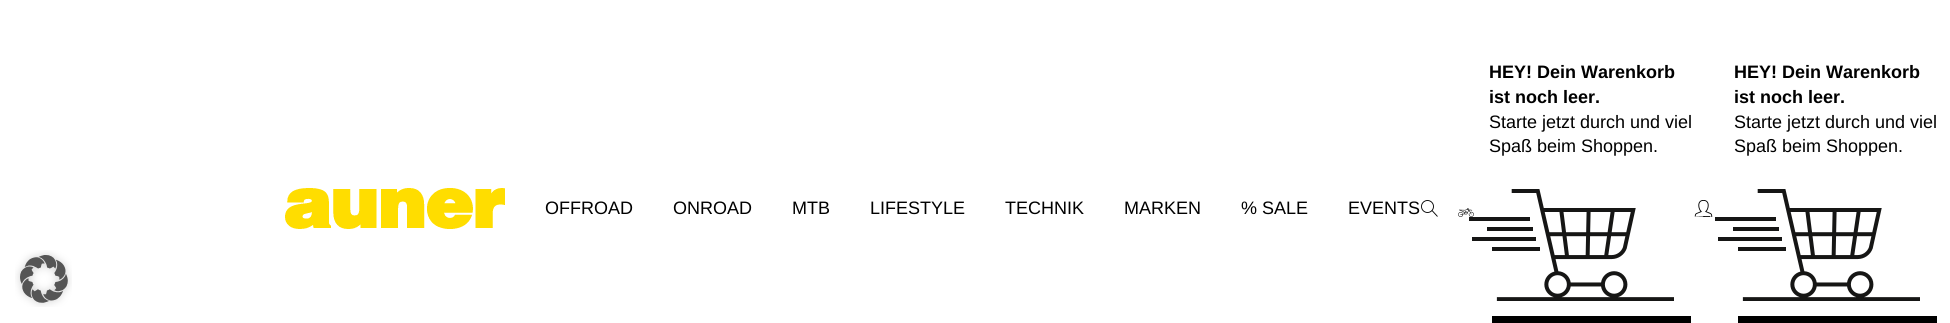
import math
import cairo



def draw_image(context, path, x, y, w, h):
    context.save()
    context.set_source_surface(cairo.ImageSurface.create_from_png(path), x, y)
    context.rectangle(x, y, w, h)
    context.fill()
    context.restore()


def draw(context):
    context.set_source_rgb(1, 1, 1)
    context.paint()
    draw_image(context, "images/1.png", 285, 188, 220, 41)
    draw_image(context, "images/2.png", 1469, 189, 205, 112)
    context.rectangle(1492.5, 316.5, 198, 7)
    context.set_source_rgb(0, 0, 0)
    context.set_line_width(1)
    context.stroke()
    context.rectangle(1493, 317, 197, 6)
    context.fill()
    draw_image(context, "images/2.png", 1715, 189, 205, 112)
    context.rectangle(1738.5, 316.5, 198, 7)
    context.stroke()
    context.rectangle(1739, 317, 197, 6)
    context.fill()
    context.arc(1427.5, 206.5, 6, 0, 2 * math.pi)
    context.set_line_width(0.9)
    context.stroke()
    context.new_path()
    context.move_to(1432, 210.5)
    context.line_to(1437.5, 216.5)
    context.stroke()
    draw_image(context, "images/3.png", 1458, 208, 16, 9)
    draw_image(context, "images/4.png", 1694, 200, 19, 17)
    draw_image(context, "images/5.png", 15, 250, 57, 57)
    context.select_font_face("Liberation Sans", cairo.FontSlant.NORMAL, cairo.FontWeight.BOLD)
    context.set_font_size(18)
    context.move_to(1489, 78)
    context.show_text("HEY! Dein Warenkorb")
    context.move_to(1489, 103)
    context.show_text("ist noch leer.")
    context.select_font_face("Liberation Sans")
    context.move_to(1489, 128)
    context.show_text("Starte jetzt durch und viel")
    context.move_to(1489, 152)
    context.show_text("Spaß beim Shoppen.")
    context.select_font_face("Liberation Sans", cairo.FontSlant.NORMAL, cairo.FontWeight.BOLD)
    context.move_to(1734, 78)
    context.show_text("HEY! Dein Warenkorb")
    context.move_to(1734, 103)
    context.show_text("ist noch leer.")
    context.select_font_face("Liberation Sans")
    context.move_to(1734, 128)
    context.show_text("Starte jetzt durch und viel")
    context.move_to(1734, 152)
    context.show_text("Spaß beim Shoppen.")
    context.move_to(545, 214)
    context.show_text("OFFROAD")
    context.move_to(673, 214)
    context.show_text("ONROAD")
    context.move_to(792, 214)
    context.show_text("MTB")
    context.move_to(870, 214)
    context.show_text("LIFESTYLE")
    context.move_to(1005, 214)
    context.show_text("TECHNIK")
    context.move_to(1124, 214)
    context.show_text("MARKEN")
    context.move_to(1241, 214)
    context.show_text("% SALE")
    context.move_to(1348, 214)
    context.show_text("EVENTS")


surface = cairo.ImageSurface(cairo.Format.RGB24, 1950, 323)
context = cairo.Context(surface)
options = cairo.FontOptions()
options.set_hint_metrics(cairo.HintMetrics.OFF)
options.set_hint_style(cairo.HintStyle.NONE)
context.set_font_options(options)
context.set_miter_limit(4)
draw(context)
surface.write_to_png("out.png")
